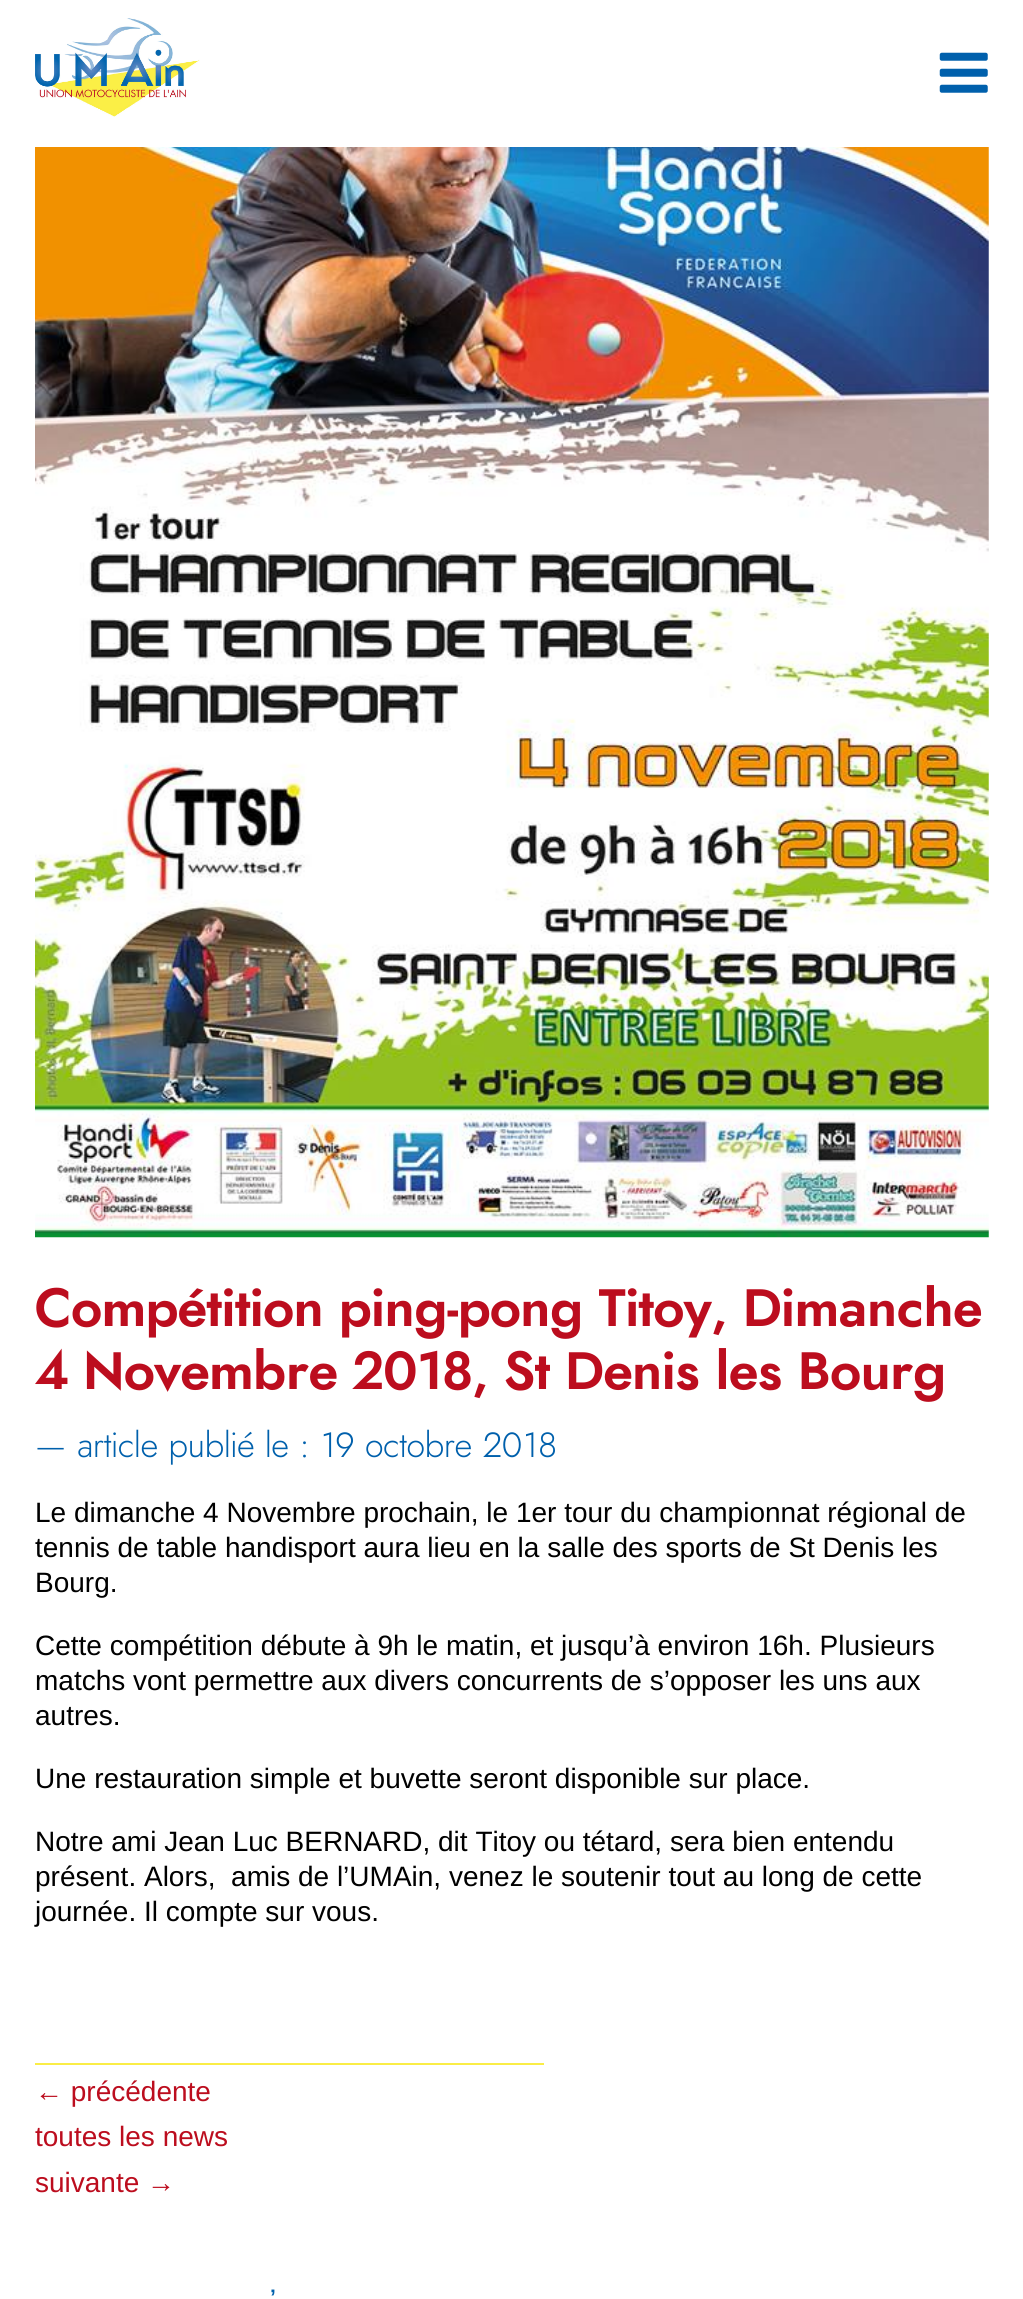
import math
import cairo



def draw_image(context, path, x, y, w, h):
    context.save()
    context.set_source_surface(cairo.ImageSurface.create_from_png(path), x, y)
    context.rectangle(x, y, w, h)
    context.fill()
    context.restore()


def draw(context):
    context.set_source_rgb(1, 1, 1)
    context.paint()
    draw_image(context, "images/1.png", 35, 18, 165, 99)
    draw_image(context, "images/2.png", 939, 52, 49, 41)
    draw_image(context, "images/3.png", 35, 147, 954, 1091)
    context.set_source_rgb(250 / 255, 237 / 255, 70 / 255)
    context.rectangle(35, 2063, 509, 2)
    context.fill()
    context.select_font_face("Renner", cairo.FontSlant.NORMAL, cairo.FontWeight.BOLD)
    context.set_font_size(52.5)
    context.set_source_rgb(188 / 255, 13 / 255, 30 / 255)
    context.move_to(35, 1326)
    context.show_text("Compétition ping-pong Titoy, Dimanche")
    context.move_to(35, 1389)
    context.show_text("4 Novembre 2018, St Denis les Bourg")
    context.select_font_face("Renner Light")
    context.set_font_size(35)
    context.set_source_rgb(0, 96 / 255, 172 / 255)
    context.move_to(35, 1457)
    context.show_text("— article publié le : 19 octobre 2018")
    context.select_font_face("Liberation Sans")
    context.set_font_size(28)
    context.set_source_rgb(0, 0, 0)
    context.move_to(35, 1522)
    context.show_text("Le dimanche 4 Novembre prochain, le 1er tour du championnat régional de")
    context.move_to(35, 1557)
    context.show_text("tennis de table handisport aura lieu en la salle des sports de St Denis les")
    context.move_to(35, 1592)
    context.show_text("Bourg.")
    context.move_to(35, 1655)
    context.show_text("Cette compétition débute à 9h le matin, et jusqu’à environ 16h. Plusieurs")
    context.move_to(35, 1690)
    context.show_text("matchs vont permettre aux divers concurrents de s’opposer les uns aux")
    context.move_to(35, 1725)
    context.show_text("autres.")
    context.move_to(35, 1788)
    context.show_text("Une restauration simple et buvette seront disponible sur place.")
    context.move_to(35, 1851)
    context.show_text("Notre ami Jean Luc BERNARD, dit Titoy ou tétard, sera bien entendu")
    context.move_to(35, 1886)
    context.show_text("présent. Alors,  amis de l’UMAin, venez le soutenir tout au long de cette")
    context.move_to(35, 1921)
    context.show_text("journée. Il compte sur vous.")
    context.set_source_rgb(188 / 255, 13 / 255, 30 / 255)
    context.move_to(35, 2101)
    context.show_text("← précédente")
    context.move_to(35, 2146)
    context.show_text("toutes les news")
    context.move_to(35, 2192)
    context.show_text("suivante →")
    context.select_font_face("Liberation Sans", cairo.FontSlant.NORMAL, cairo.FontWeight.BOLD)
    context.set_font_size(21)
    context.set_source_rgb(0, 96 / 255, 172 / 255)
    context.move_to(270, 2304)
    context.show_text("’")


surface = cairo.ImageSurface(cairo.Format.RGB24, 1023, 2299)
context = cairo.Context(surface)
options = cairo.FontOptions()
options.set_hint_metrics(cairo.HintMetrics.OFF)
options.set_hint_style(cairo.HintStyle.NONE)
context.set_font_options(options)
context.set_miter_limit(4)
draw(context)
surface.write_to_png("out.png")
